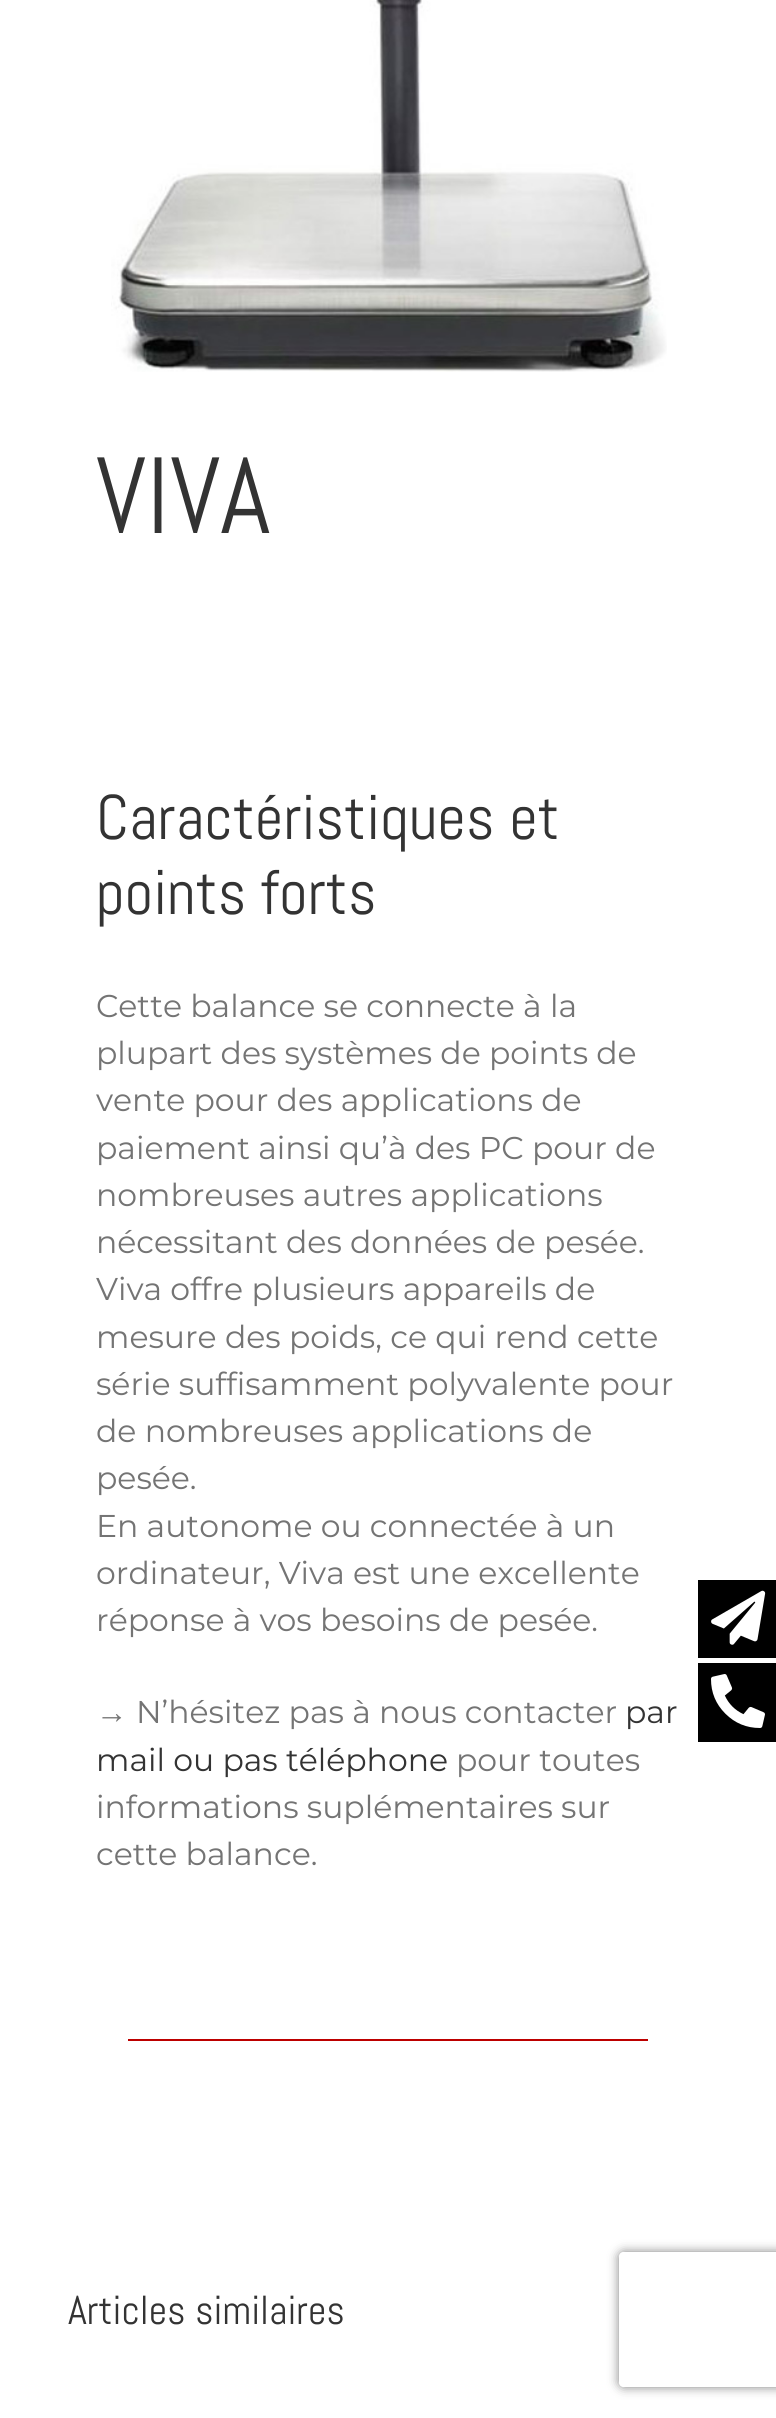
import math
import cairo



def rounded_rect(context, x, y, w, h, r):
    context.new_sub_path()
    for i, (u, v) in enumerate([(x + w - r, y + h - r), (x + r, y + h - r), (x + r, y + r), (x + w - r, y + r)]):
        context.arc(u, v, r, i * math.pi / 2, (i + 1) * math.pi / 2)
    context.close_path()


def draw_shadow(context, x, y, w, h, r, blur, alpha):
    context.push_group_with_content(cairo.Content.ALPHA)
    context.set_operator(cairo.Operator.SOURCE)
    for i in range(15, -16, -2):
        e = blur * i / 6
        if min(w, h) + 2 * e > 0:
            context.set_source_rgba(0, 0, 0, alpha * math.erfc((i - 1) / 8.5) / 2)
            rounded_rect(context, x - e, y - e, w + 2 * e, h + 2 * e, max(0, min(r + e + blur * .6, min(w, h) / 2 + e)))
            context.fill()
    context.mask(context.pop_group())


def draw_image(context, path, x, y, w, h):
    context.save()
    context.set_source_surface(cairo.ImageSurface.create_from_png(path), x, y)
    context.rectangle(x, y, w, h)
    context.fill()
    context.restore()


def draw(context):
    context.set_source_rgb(1, 1, 1)
    context.paint()
    draw_image(context, "images/1.png", 111, 0, 556, 372)
    context.set_source_rgb(189 / 255, 0, 0)
    context.rectangle(128, 2039, 520, 2)
    context.fill()
    context.set_source_rgb(0, 0, 0)
    context.rectangle(698, 1580, 78, 78)
    context.fill()
    draw_image(context, "images/2.png", 711, 1590, 55, 55)
    context.rectangle(698, 1663, 78, 79)
    context.fill()
    draw_image(context, "images/3.png", 711, 1674, 54, 54)
    context.save()
    context.set_fill_rule(cairo.FillRule.EVEN_ODD)
    context.new_path()
    context.move_to(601, 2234)
    context.line_to(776, 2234)
    context.line_to(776, 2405)
    context.line_to(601, 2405)
    context.close_path()
    context.move_to(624, 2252)
    context.line_to(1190, 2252)
    context.curve_to(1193, 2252, 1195, 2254, 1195, 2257)
    context.line_to(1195, 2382)
    context.curve_to(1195, 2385, 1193, 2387, 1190, 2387)
    context.line_to(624, 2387)
    context.curve_to(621, 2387, 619, 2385, 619, 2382)
    context.line_to(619, 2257)
    context.curve_to(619, 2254, 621, 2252, 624, 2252)
    context.close_path()
    context.clip()
    context.set_source_rgb(128 / 255, 128 / 255, 128 / 255)
    draw_shadow(context, 619, 2252, 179, 135, 5, 5.5, 1)
    context.restore()
    context.select_font_face("Abel")
    context.set_font_size(108)
    context.set_source_rgb(51 / 255, 51 / 255, 51 / 255)
    context.move_to(96, 533)
    context.show_text("VIVA")
    context.set_font_size(63)
    context.move_to(96, 839)
    context.show_text("Caractéristiques et")
    context.move_to(96, 914)
    context.show_text("points forts")
    context.select_font_face("Montserrat")
    context.set_font_size(31.5)
    context.set_source_rgb(116 / 255, 116 / 255, 116 / 255)
    context.move_to(96, 1017)
    context.show_text("Cette balance se connecte à la")
    context.move_to(96, 1064)
    context.show_text("plupart des systèmes de points de")
    context.move_to(96, 1111)
    context.show_text("vente pour des applications de")
    context.move_to(96, 1159)
    context.show_text("paiement ainsi qu’à des PC pour de")
    context.move_to(96, 1206)
    context.show_text("nombreuses autres applications")
    context.move_to(96, 1253)
    context.show_text("nécessitant des données de pesée.")
    context.move_to(96, 1300)
    context.show_text("Viva offre plusieurs appareils de")
    context.move_to(96, 1348)
    context.show_text("mesure des poids, ce qui rend cette")
    context.move_to(96, 1395)
    context.show_text("série suffisamment polyvalente pour")
    context.move_to(96, 1442)
    context.show_text("de nombreuses applications de")
    context.move_to(96, 1489)
    context.show_text("pesée.")
    context.move_to(96, 1537)
    context.show_text("En autonome ou connectée à un")
    context.move_to(96, 1584)
    context.show_text("ordinateur, Viva est une excellente")
    context.move_to(96, 1631)
    context.show_text("réponse à vos besoins de pesée.")
    context.select_font_face("Liberation Serif")
    context.move_to(96, 1723)
    context.show_text("→")
    context.select_font_face("Montserrat")
    context.move_to(136, 1723)
    context.show_text("N’hésitez pas à nous contacter")
    context.set_source_rgb(51 / 255, 51 / 255, 51 / 255)
    context.move_to(625, 1723)
    context.show_text("par")
    context.move_to(96, 1771)
    context.show_text("mail ou pas téléphone")
    context.set_source_rgb(116 / 255, 116 / 255, 116 / 255)
    context.move_to(456, 1771)
    context.show_text("pour toutes")
    context.move_to(96, 1818)
    context.show_text("informations suplémentaires sur")
    context.move_to(96, 1865)
    context.show_text("cette balance.")
    context.select_font_face("Abel")
    context.set_font_size(40.5)
    context.set_source_rgb(51 / 255, 51 / 255, 51 / 255)
    context.move_to(68, 2324)
    context.show_text("Articles similaires")


surface = cairo.ImageSurface(cairo.Format.RGB24, 776, 2418)
context = cairo.Context(surface)
options = cairo.FontOptions()
options.set_hint_metrics(cairo.HintMetrics.OFF)
options.set_hint_style(cairo.HintStyle.NONE)
context.set_font_options(options)
context.set_miter_limit(4)
draw(context)
surface.write_to_png("out.png")
